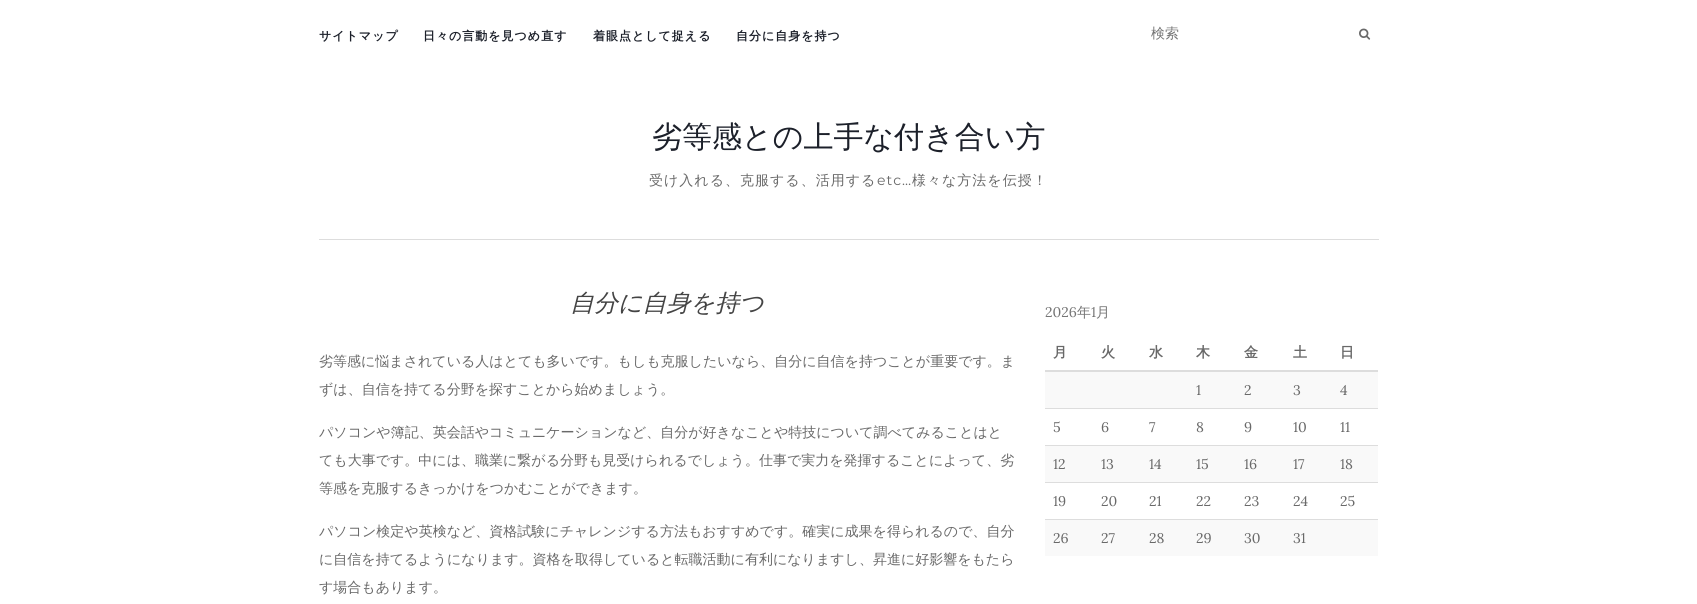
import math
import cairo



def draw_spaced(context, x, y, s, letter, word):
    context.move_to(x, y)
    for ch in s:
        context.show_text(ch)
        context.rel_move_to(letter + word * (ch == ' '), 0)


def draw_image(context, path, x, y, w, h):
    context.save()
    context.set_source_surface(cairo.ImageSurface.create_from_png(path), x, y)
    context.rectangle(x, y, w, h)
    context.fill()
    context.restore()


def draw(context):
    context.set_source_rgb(1, 1, 1)
    context.paint()
    draw_image(context, "images/1.png", 1359, 28, 12, 12)
    context.set_source_rgb(221 / 255, 221 / 255, 221 / 255)
    context.rectangle(319, 239, 1060, 1)
    context.fill()
    context.rectangle(1045, 370, 333, 2)
    context.fill()
    context.set_source_rgb(249 / 255, 249 / 255, 249 / 255)
    context.rectangle(1045, 372, 333, 36)
    context.fill()
    context.set_source_rgb(221 / 255, 221 / 255, 221 / 255)
    context.rectangle(1045, 408, 333, 1)
    context.fill()
    context.set_source_rgb(249 / 255, 249 / 255, 249 / 255)
    context.rectangle(1045, 446, 333, 36)
    context.fill()
    context.set_source_rgb(221 / 255, 221 / 255, 221 / 255)
    context.rectangle(1045, 445, 333, 1)
    context.fill()
    context.rectangle(1045, 482, 333, 1)
    context.fill()
    context.set_source_rgb(249 / 255, 249 / 255, 249 / 255)
    context.rectangle(1045, 520, 333, 36)
    context.fill()
    context.set_source_rgb(221 / 255, 221 / 255, 221 / 255)
    context.rectangle(1045, 519, 333, 1)
    context.fill()
    context.select_font_face("WenQuanYi Zen Hei", cairo.FontSlant.NORMAL, cairo.FontWeight.BOLD)
    context.set_font_size(12)
    context.set_source_rgb(28 / 255, 32 / 255, 42 / 255)
    draw_spaced(context, 319, 40, "サイトマップ", 1, 0)
    draw_spaced(context, 423, 40, "日々の言動を見つめ直す", 1, 0)
    draw_spaced(context, 593, 40, "着眼点として捉える", 1, 0)
    draw_spaced(context, 736, 40, "自分に自身を持つ", 1, 0)
    context.select_font_face("WenQuanYi Zen Hei Medium")
    context.set_font_size(14)
    context.set_source_rgb(117 / 255, 117 / 255, 117 / 255)
    context.move_to(1151, 38)
    context.show_text("検索")
    context.set_font_size(30)
    context.set_source_rgb(28 / 255, 32 / 255, 42 / 255)
    context.move_to(652, 147)
    context.show_text("劣等感との上手な付き合い方")
    context.set_font_size(14)
    context.set_source_rgb(105 / 255, 105 / 255, 105 / 255)
    draw_spaced(context, 649, 185, "受け入れる、克服する、活用する", 1, 0)
    context.select_font_face("Montserrat")
    draw_spaced(context, 877, 185, "etc…", 1, 0)
    context.select_font_face("WenQuanYi Zen Hei Medium")
    draw_spaced(context, 912, 185, "様々な方法を伝授！", 1, 0)
    context.select_font_face("WenQuanYi Zen Hei Medium", cairo.FontSlant.ITALIC)
    context.set_font_size(24)
    context.set_source_rgb(68 / 255, 68 / 255, 68 / 255)
    context.move_to(570, 311)
    context.show_text("自分に自身を持つ")
    context.select_font_face("WenQuanYi Zen Hei Medium")
    context.set_font_size(14)
    context.set_source_rgb(105 / 255, 105 / 255, 105 / 255)
    context.move_to(319, 366)
    context.show_text("劣等感に悩まされている人はとても多いです。もしも克服したいなら、自分に自信を持つことが重要です。ま")
    context.move_to(319, 394)
    context.show_text("ずは、自信を持てる分野を探すことから始めましょう。")
    context.move_to(319, 437)
    context.show_text("パソコンや簿記、英会話やコミュニケーションなど、自分が好きなことや特技について調べてみることはと")
    context.move_to(319, 465)
    context.show_text("ても大事です。中には、職業に繋がる分野も見受けられるでしょう。仕事で実力を発揮することによって、劣")
    context.move_to(319, 493)
    context.show_text("等感を克服するきっかけをつかむことができます。")
    context.move_to(319, 536)
    context.show_text("パソコン検定や英検など、資格試験にチャレンジする方法もおすすめです。確実に成果を得られるので、自分")
    context.move_to(319, 564)
    context.show_text("に自信を持てるようになります。資格を取得していると転職活動に有利になりますし、昇進に好影響をもたら")
    context.move_to(319, 592)
    context.show_text("す場合もあります。")
    context.select_font_face("Lora")
    context.set_source_rgb(117 / 255, 117 / 255, 117 / 255)
    context.move_to(1045, 317)
    context.show_text("2026")
    context.select_font_face("WenQuanYi Zen Hei Medium")
    context.move_to(1077, 317)
    context.show_text("年")
    context.select_font_face("Lora")
    context.move_to(1091, 317)
    context.show_text("1")
    context.select_font_face("WenQuanYi Zen Hei Medium")
    context.move_to(1096, 317)
    context.show_text("月")
    context.select_font_face("WenQuanYi Zen Hei", cairo.FontSlant.NORMAL, cairo.FontWeight.BOLD)
    context.set_source_rgb(105 / 255, 105 / 255, 105 / 255)
    context.move_to(1053, 357)
    context.show_text("月")
    context.move_to(1101, 357)
    context.show_text("火")
    context.move_to(1149, 357)
    context.show_text("水")
    context.move_to(1196, 357)
    context.show_text("木")
    context.move_to(1244, 357)
    context.show_text("金")
    context.move_to(1293, 357)
    context.show_text("土")
    context.move_to(1340, 357)
    context.show_text("日")
    context.select_font_face("Lora")
    context.move_to(1196, 395)
    context.show_text("1")
    context.move_to(1244, 395)
    context.show_text("2")
    context.move_to(1293, 395)
    context.show_text("3")
    context.move_to(1340, 395)
    context.show_text("4")
    context.move_to(1053, 432)
    context.show_text("5")
    context.move_to(1101, 432)
    context.show_text("6")
    context.move_to(1149, 432)
    context.show_text("7")
    context.move_to(1196, 432)
    context.show_text("8")
    context.move_to(1244, 432)
    context.show_text("9")
    context.move_to(1293, 432)
    context.show_text("10")
    context.move_to(1340, 432)
    context.show_text("11")
    context.move_to(1053, 469)
    context.show_text("12")
    context.move_to(1101, 469)
    context.show_text("13")
    context.move_to(1149, 469)
    context.show_text("14")
    context.move_to(1196, 469)
    context.show_text("15")
    context.move_to(1244, 469)
    context.show_text("16")
    context.move_to(1293, 469)
    context.show_text("17")
    context.move_to(1340, 469)
    context.show_text("18")
    context.move_to(1053, 506)
    context.show_text("19")
    context.move_to(1101, 506)
    context.show_text("20")
    context.move_to(1149, 506)
    context.show_text("21")
    context.move_to(1196, 506)
    context.show_text("22")
    context.move_to(1244, 506)
    context.show_text("23")
    context.move_to(1293, 506)
    context.show_text("24")
    context.move_to(1340, 506)
    context.show_text("25")
    context.move_to(1053, 543)
    context.show_text("26")
    context.move_to(1101, 543)
    context.show_text("27")
    context.move_to(1149, 543)
    context.show_text("28")
    context.move_to(1196, 543)
    context.show_text("29")
    context.move_to(1244, 543)
    context.show_text("30")
    context.move_to(1293, 543)
    context.show_text("31")


surface = cairo.ImageSurface(cairo.Format.RGB24, 1697, 604)
context = cairo.Context(surface)
options = cairo.FontOptions()
options.set_hint_metrics(cairo.HintMetrics.OFF)
options.set_hint_style(cairo.HintStyle.NONE)
context.set_font_options(options)
context.set_miter_limit(4)
draw(context)
surface.write_to_png("out.png")
